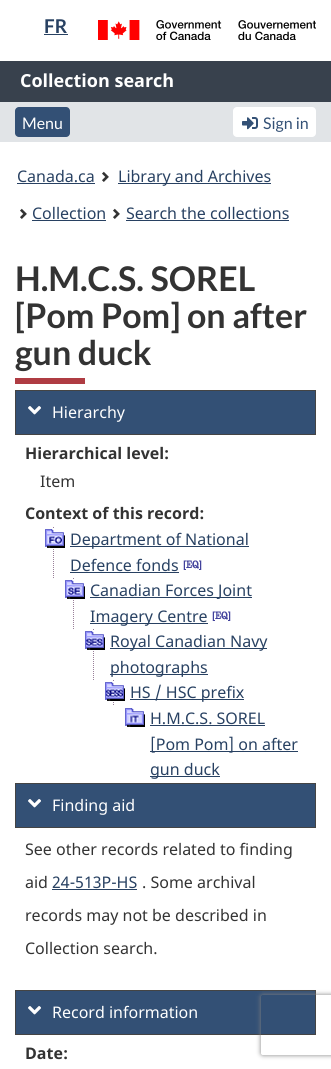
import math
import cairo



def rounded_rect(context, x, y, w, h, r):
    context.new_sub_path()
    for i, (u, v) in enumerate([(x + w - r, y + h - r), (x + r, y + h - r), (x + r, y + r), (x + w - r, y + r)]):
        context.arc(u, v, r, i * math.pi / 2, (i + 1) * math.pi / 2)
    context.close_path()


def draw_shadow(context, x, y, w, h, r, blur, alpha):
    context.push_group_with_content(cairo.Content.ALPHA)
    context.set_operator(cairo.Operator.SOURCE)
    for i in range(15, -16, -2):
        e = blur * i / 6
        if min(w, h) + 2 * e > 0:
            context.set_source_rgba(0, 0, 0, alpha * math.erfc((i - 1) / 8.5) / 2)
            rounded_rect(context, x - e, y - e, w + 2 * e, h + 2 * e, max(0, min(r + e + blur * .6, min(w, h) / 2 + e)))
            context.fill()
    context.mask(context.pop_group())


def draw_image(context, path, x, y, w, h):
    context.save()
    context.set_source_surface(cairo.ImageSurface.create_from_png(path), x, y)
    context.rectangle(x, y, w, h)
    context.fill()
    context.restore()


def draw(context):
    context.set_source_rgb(1, 1, 1)
    context.paint()
    context.set_source_rgb(40 / 255, 65 / 255, 98 / 255)
    context.rectangle(44, 34, 24, 1)
    context.fill()
    draw_image(context, "images/1.png", 98, 20, 218, 20)
    context.set_source_rgb(56 / 255, 65 / 255, 77 / 255)
    context.rectangle(0, 61, 331, 41)
    context.fill()
    context.set_source_rgb(225 / 255, 228 / 255, 231 / 255)
    context.rectangle(0, 102, 331, 40)
    context.fill()
    context.set_source_rgb(51 / 255, 80 / 255, 117 / 255)
    rounded_rect(context, 15, 107, 55, 30, 4)
    context.fill()
    context.set_source_rgb(1, 1, 1)
    rounded_rect(context, 233, 107, 83, 30, 4)
    context.fill()
    draw_image(context, "images/2.png", 242, 117, 16, 13)
    context.set_source_rgb(40 / 255, 65 / 255, 98 / 255)
    context.rectangle(17, 183, 78, 1)
    context.fill()
    draw_image(context, "images/3.png", 102, 171, 7, 11)
    context.rectangle(118, 183, 153, 1)
    context.fill()
    draw_image(context, "images/3.png", 20, 208, 7, 11)
    context.rectangle(32, 220, 74, 1)
    context.fill()
    draw_image(context, "images/3.png", 113, 208, 7, 11)
    context.rectangle(126, 220, 163, 1)
    context.fill()
    context.set_source_rgb(175 / 255, 60 / 255, 67 / 255)
    context.rectangle(15, 378, 70, 6)
    context.fill()
    context.set_source_rgb(51 / 255, 80 / 255, 117 / 255)
    context.rectangle(15.5, 390.5, 300, 44)
    context.fill_preserve()
    context.set_source_rgb(68 / 255, 68 / 255, 68 / 255)
    context.set_line_width(1)
    context.stroke()
    draw_image(context, "images/4.png", 28, 406, 13, 9)
    draw_image(context, "images/5.png", 53, 527, 1, 51)
    draw_image(context, "images/6.png", 45, 529, 20, 19)
    context.set_source_rgb(40 / 255, 65 / 255, 98 / 255)
    context.rectangle(70, 546, 179, 1)
    context.fill()
    context.rectangle(70, 572, 109, 1)
    context.fill()
    draw_image(context, "images/7.png", 183, 560, 19, 10)
    draw_image(context, "images/5.png", 73, 578, 1, 51)
    draw_image(context, "images/8.png", 65, 580, 20, 19)
    context.rectangle(90, 597, 162, 1)
    context.fill()
    context.rectangle(90, 623, 118, 1)
    context.fill()
    draw_image(context, "images/7.png", 212, 611, 19, 10)
    draw_image(context, "images/5.png", 93, 629, 1, 51)
    draw_image(context, "images/9.png", 85, 631, 20, 19)
    context.rectangle(110, 648, 157, 1)
    context.fill()
    context.rectangle(110, 674, 98, 1)
    context.fill()
    draw_image(context, "images/10.png", 113, 680, 1, 25)
    draw_image(context, "images/11.png", 105, 682, 20, 19)
    context.rectangle(130, 699, 114, 1)
    context.fill()
    draw_image(context, "images/12.png", 125, 708, 20, 19)
    context.rectangle(150, 725, 115, 1)
    context.fill()
    context.rectangle(150, 751, 148, 1)
    context.fill()
    context.rectangle(150, 776, 70, 1)
    context.fill()
    context.set_source_rgb(51 / 255, 80 / 255, 117 / 255)
    context.rectangle(15.5, 783.5, 300, 44)
    context.fill_preserve()
    context.set_source_rgb(68 / 255, 68 / 255, 68 / 255)
    context.stroke()
    draw_image(context, "images/4.png", 28, 799, 13, 9)
    context.set_source_rgb(40 / 255, 65 / 255, 98 / 255)
    context.rectangle(52, 889, 85, 1)
    context.fill()
    context.set_source_rgb(51 / 255, 80 / 255, 117 / 255)
    context.rectangle(15.5, 990.5, 300, 44)
    context.fill_preserve()
    context.set_source_rgb(68 / 255, 68 / 255, 68 / 255)
    context.stroke()
    draw_image(context, "images/4.png", 28, 1006, 13, 9)
    context.save()
    context.set_fill_rule(cairo.FillRule.EVEN_ODD)
    context.new_path()
    context.move_to(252, 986)
    context.line_to(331, 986)
    context.line_to(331, 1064)
    context.line_to(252, 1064)
    context.close_path()
    context.move_to(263, 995)
    context.line_to(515, 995)
    context.curve_to(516, 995, 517, 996, 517, 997)
    context.line_to(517, 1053)
    context.curve_to(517, 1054, 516, 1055, 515, 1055)
    context.line_to(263, 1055)
    context.curve_to(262, 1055, 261, 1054, 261, 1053)
    context.line_to(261, 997)
    context.curve_to(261, 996, 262, 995, 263, 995)
    context.close_path()
    context.clip()
    context.set_source_rgb(128 / 255, 128 / 255, 128 / 255)
    draw_shadow(context, 261, 995, 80, 60, 2, 2.5, 1)
    context.restore()
    context.select_font_face("Lato", cairo.FontSlant.NORMAL, cairo.FontWeight.BOLD)
    context.set_font_size(19)
    context.set_source_rgb(40 / 255, 65 / 255, 98 / 255)
    context.move_to(44, 33)
    context.show_text("FR")
    context.select_font_face("Noto Sans", cairo.FontSlant.NORMAL, cairo.FontWeight.BOLD)
    context.set_font_size(18)
    context.set_source_rgb(1, 1, 1)
    context.move_to(20, 87)
    context.show_text("Collection search")
    context.select_font_face("Lato")
    context.set_font_size(16)
    context.move_to(22, 129)
    context.show_text("Menu")
    context.set_source_rgb(51 / 255, 80 / 255, 117 / 255)
    context.move_to(263, 129)
    context.show_text("Sign in")
    context.select_font_face("Noto Sans")
    context.set_source_rgb(40 / 255, 65 / 255, 98 / 255)
    context.move_to(17, 182)
    context.show_text("Canada.ca")
    context.move_to(118, 182)
    context.show_text("Library and Archives")
    context.move_to(32, 219)
    context.show_text("Collection")
    context.move_to(126, 219)
    context.show_text("Search the collections")
    context.select_font_face("Lato", cairo.FontSlant.NORMAL, cairo.FontWeight.BOLD)
    context.set_font_size(34)
    context.set_source_rgb(51 / 255, 51 / 255, 51 / 255)
    context.move_to(15, 291)
    context.show_text("H.M.C.S. SOREL")
    context.move_to(15, 328)
    context.show_text("[Pom Pom] on after")
    context.move_to(15, 365)
    context.show_text("gun duck")
    context.select_font_face("Noto Sans")
    context.set_font_size(16)
    context.set_source_rgb(1, 1, 1)
    context.move_to(52, 418)
    context.show_text("Hierarchy")
    context.select_font_face("Noto Sans", cairo.FontSlant.NORMAL, cairo.FontWeight.BOLD)
    context.set_source_rgb(51 / 255, 51 / 255, 51 / 255)
    context.move_to(25, 459)
    context.show_text("Hierarchical level:")
    context.select_font_face("Noto Sans")
    context.move_to(40, 487)
    context.show_text("Item")
    context.select_font_face("Noto Sans", cairo.FontSlant.NORMAL, cairo.FontWeight.BOLD)
    context.move_to(25, 519)
    context.show_text("Context of this record:")
    context.select_font_face("Noto Sans")
    context.set_source_rgb(40 / 255, 65 / 255, 98 / 255)
    context.move_to(70, 545)
    context.show_text("Department of National")
    context.move_to(70, 571)
    context.show_text("Defence fonds")
    context.move_to(90, 596)
    context.show_text("Canadian Forces Joint")
    context.move_to(90, 622)
    context.show_text("Imagery Centre")
    context.move_to(110, 647)
    context.show_text("Royal Canadian Navy")
    context.move_to(110, 673)
    context.show_text("photographs")
    context.move_to(130, 698)
    context.show_text("HS / HSC prefix")
    context.move_to(150, 724)
    context.show_text("H.M.C.S. SOREL")
    context.move_to(150, 750)
    context.show_text("[Pom Pom] on after")
    context.move_to(150, 775)
    context.show_text("gun duck")
    context.set_source_rgb(1, 1, 1)
    context.move_to(52, 811)
    context.show_text("Finding aid")
    context.set_source_rgb(51 / 255, 51 / 255, 51 / 255)
    context.move_to(25, 855)
    context.show_text("See other records related to finding")
    context.move_to(25, 888)
    context.show_text("aid")
    context.set_source_rgb(40 / 255, 65 / 255, 98 / 255)
    context.move_to(52, 888)
    context.show_text("24-513P-HS")
    context.set_source_rgb(51 / 255, 51 / 255, 51 / 255)
    context.move_to(142, 888)
    context.show_text(". Some archival")
    context.move_to(25, 921)
    context.show_text("records may not be described in")
    context.move_to(25, 954)
    context.show_text("Collection search.")
    context.set_source_rgb(1, 1, 1)
    context.move_to(52, 1018)
    context.show_text("Record information")
    context.select_font_face("Noto Sans", cairo.FontSlant.NORMAL, cairo.FontWeight.BOLD)
    context.set_source_rgb(51 / 255, 51 / 255, 51 / 255)
    context.move_to(25, 1059)
    context.show_text("Date:")


surface = cairo.ImageSurface(cairo.Format.RGB24, 331, 1069)
context = cairo.Context(surface)
options = cairo.FontOptions()
options.set_hint_metrics(cairo.HintMetrics.OFF)
options.set_hint_style(cairo.HintStyle.NONE)
context.set_font_options(options)
context.set_miter_limit(4)
draw(context)
surface.write_to_png("out.png")
